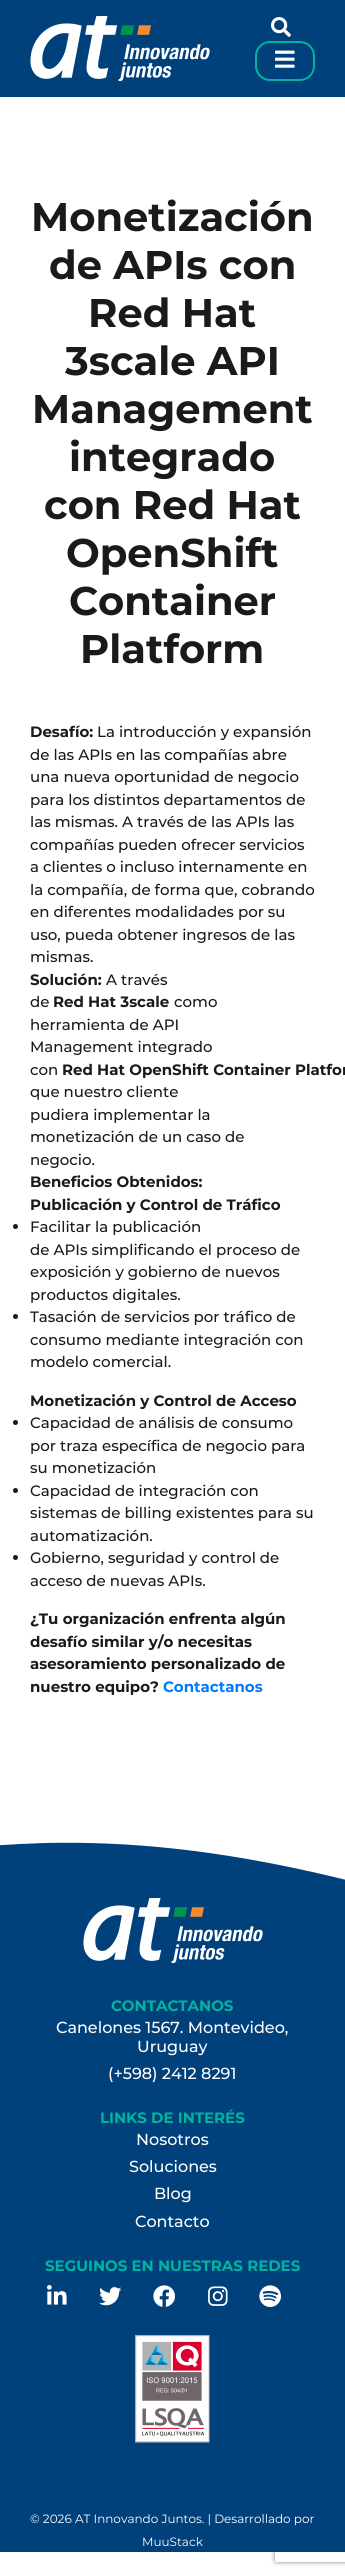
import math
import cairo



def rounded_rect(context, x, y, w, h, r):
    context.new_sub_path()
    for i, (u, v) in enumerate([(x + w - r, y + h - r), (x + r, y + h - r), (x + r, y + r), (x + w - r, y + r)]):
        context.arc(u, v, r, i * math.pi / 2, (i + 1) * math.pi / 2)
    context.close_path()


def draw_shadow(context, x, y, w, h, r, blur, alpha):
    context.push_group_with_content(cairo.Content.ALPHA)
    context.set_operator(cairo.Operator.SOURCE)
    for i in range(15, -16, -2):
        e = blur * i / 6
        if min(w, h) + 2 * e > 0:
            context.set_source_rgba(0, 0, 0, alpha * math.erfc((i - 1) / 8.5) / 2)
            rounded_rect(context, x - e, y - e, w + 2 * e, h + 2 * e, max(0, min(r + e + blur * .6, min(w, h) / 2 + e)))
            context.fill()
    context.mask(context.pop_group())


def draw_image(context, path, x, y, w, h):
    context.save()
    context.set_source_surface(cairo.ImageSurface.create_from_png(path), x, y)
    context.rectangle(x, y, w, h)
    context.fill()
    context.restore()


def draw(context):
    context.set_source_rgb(1, 1, 1)
    context.paint()
    context.set_source_rgb(0, 64 / 255, 123 / 255)
    context.rectangle(0, 0, 345, 97)
    context.fill()
    draw_image(context, "images/1.png", 30, 16, 180, 65)
    draw_image(context, "images/2.png", 271, 17, 20, 20)
    rounded_rect(context, 256, 42, 58, 38, 14)
    context.set_source_rgb(0, 180 / 255, 159 / 255)
    context.stroke()
    draw_image(context, "images/3.png", 275, 50, 20, 18)
    context.set_source_rgb(26 / 255, 26 / 255, 26 / 255)
    context.arc(15.5, 1226.5, 2.5, 0, 2 * math.pi)
    context.fill()
    context.arc(15.5, 1316.5, 2.5, 0, 2 * math.pi)
    context.fill()
    context.arc(15.5, 1422.5, 2.5, 0, 2 * math.pi)
    context.fill()
    context.arc(15.5, 1490.5, 2.5, 0, 2 * math.pi)
    context.fill()
    context.arc(15.5, 1557.5, 2.5, 0, 2 * math.pi)
    context.fill()
    context.save()
    context.set_fill_rule(cairo.FillRule.EVEN_ODD)
    context.new_path()
    context.move_to(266, 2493)
    context.line_to(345, 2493)
    context.line_to(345, 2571)
    context.line_to(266, 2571)
    context.close_path()
    context.move_to(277, 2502)
    context.line_to(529, 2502)
    context.curve_to(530, 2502, 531, 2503, 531, 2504)
    context.line_to(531, 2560)
    context.curve_to(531, 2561, 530, 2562, 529, 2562)
    context.line_to(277, 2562)
    context.curve_to(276, 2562, 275, 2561, 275, 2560)
    context.line_to(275, 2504)
    context.curve_to(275, 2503, 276, 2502, 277, 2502)
    context.close_path()
    context.clip()
    context.set_source_rgb(128 / 255, 128 / 255, 128 / 255)
    draw_shadow(context, 275, 2502, 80, 60, 2, 2.5, 1)
    context.restore()
    context.set_source_rgb(0, 64 / 255, 123 / 255)
    context.new_path()
    context.move_to(45, 1843)
    context.curve_to(-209, 1850, -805, 1969, -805, 1969)
    context.line_to(-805, 2551)
    context.line_to(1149, 2551)
    context.line_to(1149, 2047)
    context.curve_to(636, 2022, 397, 1835, 45, 1843)
    context.close_path()
    context.fill()
    context.rectangle(0, 2551, 345, 1)
    context.fill()
    draw_image(context, "images/1.png", 83, 1898, 180, 65)
    draw_image(context, "images/4.png", 47, 2285, 20, 20)
    draw_image(context, "images/5.png", 99, 2287, 23, 19)
    draw_image(context, "images/6.png", 153, 2285, 22, 22)
    draw_image(context, "images/7.png", 208, 2286, 20, 20)
    draw_image(context, "images/8.png", 259, 2285, 22, 22)
    draw_image(context, "images/9.png", 135, 2335, 75, 108)
    context.select_font_face("Montserrat", cairo.FontSlant.NORMAL, cairo.FontWeight.BOLD)
    context.set_font_size(40)
    context.set_source_rgb(26 / 255, 26 / 255, 26 / 255)
    context.move_to(31, 231)
    context.show_text("Monetización")
    context.move_to(49, 279)
    context.show_text("de APIs con")
    context.move_to(88, 327)
    context.show_text("Red Hat")
    context.move_to(65, 375)
    context.show_text("3scale API")
    context.move_to(32, 423)
    context.show_text("Management")
    context.move_to(69, 471)
    context.show_text("integrado")
    context.move_to(44, 519)
    context.show_text("con Red Hat")
    context.move_to(66, 567)
    context.show_text("OpenShift")
    context.move_to(69, 615)
    context.show_text("Container")
    context.move_to(80, 663)
    context.show_text("Platform")
    context.set_font_size(15)
    context.move_to(30, 737)
    context.show_text("Desafío:")
    context.select_font_face("Montserrat Medium")
    context.move_to(97, 737)
    context.show_text("La introducción y expansión")
    context.move_to(30, 760)
    context.show_text("de las APIs en las compañías abre")
    context.move_to(30, 782)
    context.show_text("una nueva oportunidad de negocio")
    context.move_to(30, 805)
    context.show_text("para los distintos departamentos de")
    context.move_to(30, 827)
    context.show_text("las mismas. A través de las APIs las")
    context.move_to(30, 850)
    context.show_text("compañías pueden ofrecer servicios")
    context.move_to(30, 872)
    context.show_text("a clientes o incluso internamente en")
    context.move_to(30, 895)
    context.show_text("la compañía, de forma que, cobrando")
    context.move_to(30, 917)
    context.show_text("en diferentes modalidades por su")
    context.move_to(30, 940)
    context.show_text("uso, pueda obtener ingresos de las")
    context.move_to(30, 962)
    context.show_text("mismas.")
    context.select_font_face("Montserrat", cairo.FontSlant.NORMAL, cairo.FontWeight.BOLD)
    context.move_to(30, 985)
    context.show_text("Solución:")
    context.select_font_face("Montserrat Medium")
    context.move_to(106, 985)
    context.show_text("A través")
    context.move_to(30, 1007)
    context.show_text("de")
    context.select_font_face("Montserrat", cairo.FontSlant.NORMAL, cairo.FontWeight.BOLD)
    context.move_to(53, 1007)
    context.show_text("Red Hat 3scale")
    context.select_font_face("Montserrat Medium")
    context.move_to(174, 1007)
    context.show_text("como")
    context.move_to(30, 1030)
    context.show_text("herramienta de API")
    context.move_to(30, 1052)
    context.show_text("Management integrado")
    context.move_to(30, 1075)
    context.show_text("con")
    context.select_font_face("Montserrat", cairo.FontSlant.NORMAL, cairo.FontWeight.BOLD)
    context.move_to(62, 1075)
    context.show_text("Red Hat OpenShift Container Platfor")
    context.select_font_face("Montserrat Medium")
    context.move_to(30, 1097)
    context.show_text("que nuestro cliente")
    context.move_to(30, 1120)
    context.show_text("pudiera implementar la")
    context.move_to(30, 1142)
    context.show_text("monetización de un caso de")
    context.move_to(30, 1165)
    context.show_text("negocio.")
    context.select_font_face("Montserrat", cairo.FontSlant.NORMAL, cairo.FontWeight.BOLD)
    context.move_to(30, 1187)
    context.show_text("Beneficios Obtenidos:")
    context.move_to(30, 1210)
    context.show_text("Publicación y Control de Tráfico")
    context.select_font_face("Montserrat Medium")
    context.move_to(30, 1232)
    context.show_text("Facilitar la publicación")
    context.move_to(30, 1255)
    context.show_text("de APIs simplificando el proceso de")
    context.move_to(30, 1277)
    context.show_text("exposición y gobierno de nuevos")
    context.move_to(30, 1300)
    context.show_text("productos digitales.")
    context.move_to(30, 1322)
    context.show_text("Tasación de servicios por tráfico de")
    context.move_to(30, 1345)
    context.show_text("consumo mediante integración con")
    context.move_to(30, 1367)
    context.show_text("modelo comercial.")
    context.select_font_face("Montserrat", cairo.FontSlant.NORMAL, cairo.FontWeight.BOLD)
    context.move_to(30, 1406)
    context.show_text("Monetización y Control de Acceso")
    context.select_font_face("Montserrat Medium")
    context.move_to(30, 1428)
    context.show_text("Capacidad de análisis de consumo")
    context.move_to(30, 1451)
    context.show_text("por traza específica de negocio para")
    context.move_to(30, 1473)
    context.show_text("su monetización")
    context.move_to(30, 1496)
    context.show_text("Capacidad de integración con")
    context.move_to(30, 1518)
    context.show_text("sistemas de billing existentes para su")
    context.move_to(30, 1541)
    context.show_text("automatización.")
    context.move_to(30, 1563)
    context.show_text("Gobierno, seguridad y control de")
    context.move_to(30, 1586)
    context.show_text("acceso de nuevas APIs.")
    context.select_font_face("Montserrat", cairo.FontSlant.NORMAL, cairo.FontWeight.BOLD)
    context.move_to(30, 1624)
    context.show_text("¿Tu organización enfrenta algún")
    context.move_to(30, 1647)
    context.show_text("desafío similar y/o necesitas")
    context.move_to(30, 1669)
    context.show_text("asesoramiento personalizado de")
    context.move_to(30, 1692)
    context.show_text("nuestro equipo?")
    context.set_source_rgb(0, 123 / 255, 1)
    context.move_to(163, 1692)
    context.show_text("Contactanos")
    context.set_source_rgb(0, 180 / 255, 159 / 255)
    context.move_to(111, 2011)
    context.show_text("CONTACTANOS")
    context.select_font_face("Montserrat Medium")
    context.set_font_size(16)
    context.set_source_rgb(1, 1, 1)
    context.move_to(56, 2033)
    context.show_text("Canelones 1567. Montevideo,")
    context.move_to(137, 2052)
    context.show_text("Uruguay")
    context.move_to(108, 2079)
    context.show_text("(+598) 2412 8291")
    context.select_font_face("Montserrat", cairo.FontSlant.NORMAL, cairo.FontWeight.BOLD)
    context.set_font_size(15)
    context.set_source_rgb(0, 180 / 255, 159 / 255)
    context.move_to(100, 2123)
    context.show_text("LINKS DE INTERÉS")
    context.select_font_face("Montserrat Medium")
    context.set_font_size(16)
    context.set_source_rgb(1, 1, 1)
    context.move_to(136, 2145)
    context.show_text("Nosotros")
    context.move_to(129, 2172)
    context.show_text("Soluciones")
    context.move_to(154, 2199)
    context.show_text("Blog")
    context.move_to(135, 2227)
    context.show_text("Contacto")
    context.select_font_face("Montserrat", cairo.FontSlant.NORMAL, cairo.FontWeight.BOLD)
    context.set_font_size(15)
    context.set_source_rgb(0, 180 / 255, 159 / 255)
    context.move_to(45, 2271)
    context.show_text("SEGUINOS EN NUESTRAS REDES")
    context.select_font_face("Montserrat")
    context.set_font_size(12)
    context.set_source_rgb(1, 1, 1)
    context.move_to(30, 2523)
    context.show_text("© 2026 AT Innovando Juntos. | Desarrollado por")
    context.move_to(142, 2546)
    context.show_text("MuuStack")


surface = cairo.ImageSurface(cairo.Format.RGB24, 345, 2576)
context = cairo.Context(surface)
options = cairo.FontOptions()
options.set_hint_metrics(cairo.HintMetrics.OFF)
options.set_hint_style(cairo.HintStyle.NONE)
context.set_font_options(options)
context.set_miter_limit(4)
draw(context)
surface.write_to_png("out.png")
